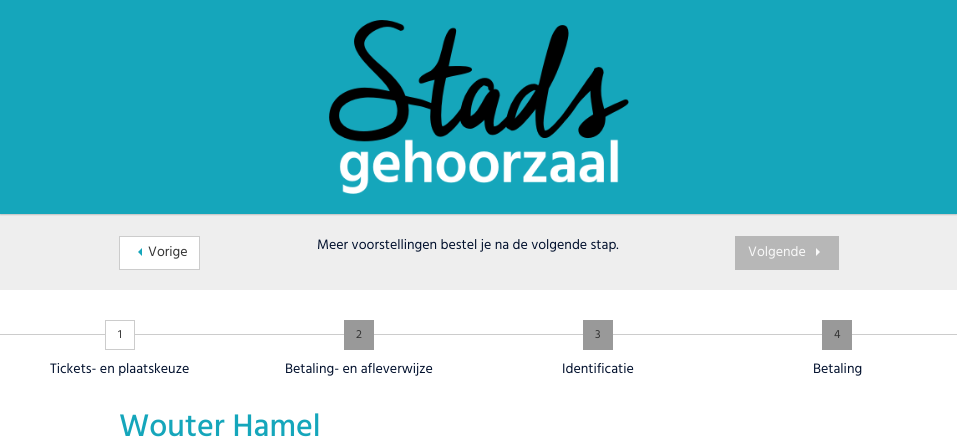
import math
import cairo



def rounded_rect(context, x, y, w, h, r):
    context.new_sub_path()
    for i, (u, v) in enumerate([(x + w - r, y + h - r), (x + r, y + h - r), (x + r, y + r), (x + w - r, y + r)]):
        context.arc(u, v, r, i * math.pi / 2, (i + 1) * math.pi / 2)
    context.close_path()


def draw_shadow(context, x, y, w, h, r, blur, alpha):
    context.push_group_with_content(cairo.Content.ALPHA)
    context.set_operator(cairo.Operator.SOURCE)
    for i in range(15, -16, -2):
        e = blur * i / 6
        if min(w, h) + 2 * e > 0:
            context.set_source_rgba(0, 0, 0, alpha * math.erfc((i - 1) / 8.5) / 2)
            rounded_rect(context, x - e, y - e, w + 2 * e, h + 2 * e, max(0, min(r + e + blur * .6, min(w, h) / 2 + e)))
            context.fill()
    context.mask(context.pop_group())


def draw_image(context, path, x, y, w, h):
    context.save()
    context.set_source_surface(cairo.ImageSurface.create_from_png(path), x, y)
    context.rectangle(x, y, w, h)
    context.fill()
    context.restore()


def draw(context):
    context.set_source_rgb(1, 1, 1)
    context.paint()
    context.set_source_rgb(0, 0, 0)
    draw_shadow(context, 0, 0, 957, 214, 0, 2, 0.5)
    context.set_source_rgb(21 / 255, 166 / 255, 187 / 255)
    context.rectangle(0, 0, 957, 214)
    context.fill()
    draw_image(context, "images/1.png", 329, 20, 300, 174)
    context.set_source_rgb(238 / 255, 238 / 255, 238 / 255)
    context.rectangle(0, 216, 957, 74)
    context.fill()
    context.set_source_rgb(1, 1, 1)
    context.rectangle(119.5, 236.5, 80, 33)
    context.fill_preserve()
    context.set_source_rgb(204 / 255, 204 / 255, 204 / 255)
    context.set_line_width(1)
    context.stroke()
    context.set_source_rgb(21 / 255, 166 / 255, 187 / 255)
    context.new_path()
    context.move_to(142, 248)
    context.line_to(142, 256)
    context.line_to(138, 252)
    context.close_path()
    context.fill()
    context.set_source_rgb(183 / 255, 183 / 255, 183 / 255)
    context.rectangle(735, 236, 104, 34)
    context.fill()
    context.set_source_rgb(249 / 255, 249 / 255, 249 / 255)
    context.new_path()
    context.move_to(816, 256)
    context.line_to(816, 248)
    context.line_to(820, 252)
    context.close_path()
    context.fill()
    context.set_source_rgb(204 / 255, 204 / 255, 204 / 255)
    context.rectangle(0, 334, 957, 1)
    context.fill()
    context.set_source_rgb(1, 1, 1)
    context.rectangle(106, 334, 28, 1)
    context.fill()
    context.rectangle(105.5, 320.5, 29, 29)
    context.set_source_rgb(204 / 255, 204 / 255, 204 / 255)
    context.stroke()
    context.set_source_rgb(153 / 255, 153 / 255, 153 / 255)
    context.rectangle(344, 320, 30, 30)
    context.fill()
    context.rectangle(583, 320, 30, 30)
    context.fill()
    context.rectangle(822, 320, 30, 30)
    context.fill()
    context.select_font_face("Hind")
    context.set_font_size(14)
    context.set_source_rgb(51 / 255, 51 / 255, 51 / 255)
    context.move_to(148, 256)
    context.show_text("Vorige")
    context.set_source_rgb(0, 15 / 255, 44 / 255)
    context.move_to(317, 249)
    context.show_text("Meer voorstellingen bestel je na de volgende stap.")
    context.set_source_rgb(249 / 255, 249 / 255, 249 / 255)
    context.move_to(748, 256)
    context.show_text("Volgende")
    context.set_font_size(12)
    context.set_source_rgb(51 / 255, 51 / 255, 51 / 255)
    context.move_to(118, 338)
    context.show_text("1")
    context.set_font_size(14)
    context.set_source_rgb(0, 15 / 255, 44 / 255)
    context.move_to(50, 373)
    context.show_text("Tickets- en plaatskeuze")
    context.set_font_size(12)
    context.set_source_rgb(51 / 255, 51 / 255, 51 / 255)
    context.move_to(356, 338)
    context.show_text("2")
    context.set_font_size(14)
    context.set_source_rgb(0, 15 / 255, 44 / 255)
    context.move_to(285, 373)
    context.show_text("Betaling- en afleverwijze")
    context.set_font_size(12)
    context.set_source_rgb(51 / 255, 51 / 255, 51 / 255)
    context.move_to(595, 338)
    context.show_text("3")
    context.set_font_size(14)
    context.set_source_rgb(0, 15 / 255, 44 / 255)
    context.move_to(562, 373)
    context.show_text("Identificatie")
    context.set_font_size(12)
    context.set_source_rgb(51 / 255, 51 / 255, 51 / 255)
    context.move_to(834, 338)
    context.show_text("4")
    context.set_font_size(14)
    context.set_source_rgb(0, 15 / 255, 44 / 255)
    context.move_to(813, 373)
    context.show_text("Betaling")
    context.select_font_face("Hind Medium")
    context.set_font_size(32)
    context.set_source_rgb(21 / 255, 166 / 255, 187 / 255)
    context.move_to(119, 436)
    context.show_text("Wouter Hamel")


surface = cairo.ImageSurface(cairo.Format.RGB24, 957, 444)
context = cairo.Context(surface)
options = cairo.FontOptions()
options.set_hint_metrics(cairo.HintMetrics.OFF)
options.set_hint_style(cairo.HintStyle.NONE)
context.set_font_options(options)
context.set_miter_limit(4)
draw(context)
surface.write_to_png("out.png")
